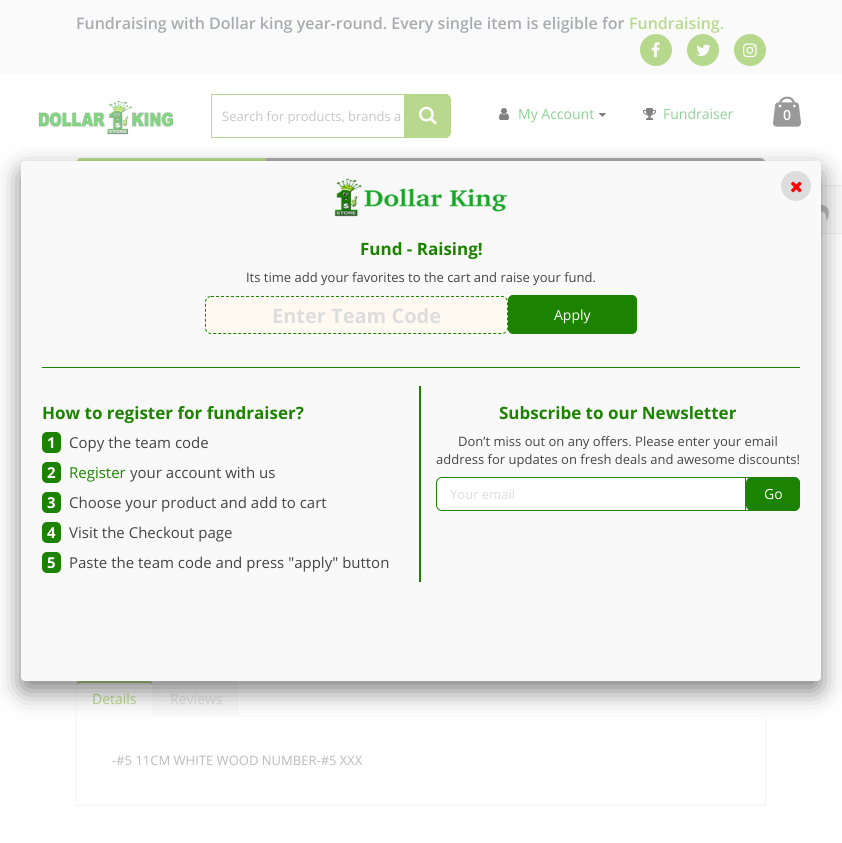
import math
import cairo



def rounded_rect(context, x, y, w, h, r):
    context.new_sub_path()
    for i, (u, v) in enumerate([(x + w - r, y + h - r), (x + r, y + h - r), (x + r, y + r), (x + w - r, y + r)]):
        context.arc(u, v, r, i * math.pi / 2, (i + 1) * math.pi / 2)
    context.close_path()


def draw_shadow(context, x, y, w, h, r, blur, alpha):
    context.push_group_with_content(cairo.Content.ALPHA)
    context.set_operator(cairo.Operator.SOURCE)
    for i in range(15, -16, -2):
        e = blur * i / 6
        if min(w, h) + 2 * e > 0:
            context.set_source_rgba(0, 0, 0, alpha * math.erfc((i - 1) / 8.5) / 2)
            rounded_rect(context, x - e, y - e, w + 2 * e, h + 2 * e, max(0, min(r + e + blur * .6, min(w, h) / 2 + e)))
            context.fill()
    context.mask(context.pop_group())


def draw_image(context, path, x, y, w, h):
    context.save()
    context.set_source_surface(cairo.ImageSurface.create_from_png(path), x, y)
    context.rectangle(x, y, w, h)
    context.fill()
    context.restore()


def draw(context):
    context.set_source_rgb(1, 1, 1)
    context.paint()
    context.set_source_rgb(245 / 255, 245 / 255, 245 / 255)
    context.rectangle(0, 0, 842, 74)
    context.fill()
    context.set_source_rgb(111 / 255, 179 / 255, 26 / 255)
    context.arc(656, 50, 16, 0, 2 * math.pi)
    context.fill()
    draw_image(context, "images/1.png", 651, 42, 9, 16)
    context.arc(703, 50, 16, 0, 2 * math.pi)
    context.fill()
    draw_image(context, "images/2.png", 696, 44, 15, 12)
    context.arc(750, 50, 16, 0, 2 * math.pi)
    context.fill()
    draw_image(context, "images/3.png", 743, 43, 14, 15)
    draw_image(context, "images/4.png", 38, 100, 135, 35)
    context.set_source_rgb(112 / 255, 178 / 255, 26 / 255)
    context.rectangle(211, 94, 237, 1)
    context.fill()
    context.rectangle(211, 137, 237, 1)
    context.fill()
    context.rectangle(211, 94, 1, 44)
    context.fill()
    context.new_path()
    context.move_to(404, 94)
    context.line_to(445, 94)
    context.curve_to(448.5, 94, 451, 96.5, 451, 100)
    context.line_to(451, 132)
    context.curve_to(451, 135.5, 448.5, 138, 445, 138)
    context.line_to(404, 138)
    context.close_path()
    context.fill()
    draw_image(context, "images/5.png", 419, 106, 18, 19)
    draw_image(context, "images/6.png", 499, 108, 10, 12)
    draw_image(context, "images/7.png", 599, 113, 7, 4)
    draw_image(context, "images/8.png", 643, 108, 13, 12)
    draw_image(context, "images/9.png", 773, 96, 28, 31)
    context.set_source_rgb(84 / 255, 87 / 255, 94 / 255)
    rounded_rect(context, 76, 158, 690, 41, 6)
    context.fill()
    context.set_source_rgb(111 / 255, 179 / 255, 26 / 255)
    context.new_path()
    context.move_to(82, 158)
    context.line_to(266, 158)
    context.line_to(266, 199)
    context.line_to(82, 199)
    context.curve_to(78.5, 199, 76, 196.5, 76, 193)
    context.line_to(76, 164)
    context.curve_to(76, 160.5, 78.5, 158, 82, 158)
    context.close_path()
    context.fill()
    context.set_source_rgb(245 / 255, 245 / 255, 245 / 255)
    context.rectangle(821, 186, 21, 47)
    context.fill()
    context.set_source_rgb(220 / 255, 220 / 255, 218 / 255)
    context.rectangle(821, 185, 21, 1)
    context.fill()
    context.rectangle(821, 233, 21, 1)
    context.fill()
    draw_image(context, "images/10.png", 821, 204, 8, 17)
    context.save()
    context.set_fill_rule(cairo.FillRule.EVEN_ODD)
    context.new_path()
    context.move_to(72, 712)
    context.line_to(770, 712)
    context.line_to(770, 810)
    context.line_to(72, 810)
    context.close_path()
    context.move_to(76, 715)
    context.line_to(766, 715)
    context.line_to(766, 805)
    context.line_to(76, 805)
    context.close_path()
    context.clip()
    context.set_source_rgb(238 / 255, 238 / 255, 238 / 255)
    draw_shadow(context, 76, 716, 690, 90, 0, 1, 1)
    context.restore()
    context.rectangle(76.5, 715.5, 689, 89)
    context.set_source_rgb(238 / 255, 238 / 255, 238 / 255)
    context.set_line_width(1)
    context.stroke()
    context.set_source_rgb(1, 1, 1)
    context.new_path()
    context.move_to(81, 683)
    context.line_to(148, 683)
    context.curve_to(150, 683, 152, 684, 152, 685)
    context.line_to(152, 716)
    context.line_to(77, 716)
    context.line_to(77, 685)
    context.curve_to(77, 684, 79, 683, 81, 683)
    context.close_path()
    context.fill()
    context.set_source_rgb(111 / 255, 179 / 255, 26 / 255)
    context.new_path()
    context.move_to(81, 680)
    context.curve_to(79, 680, 78, 681, 77, 682)
    context.line_to(77, 684)
    context.line_to(80, 683)
    context.line_to(149, 683)
    context.line_to(152, 684)
    context.line_to(152, 682)
    context.curve_to(151, 681, 150, 680, 148, 680)
    context.close_path()
    context.fill()
    context.set_source_rgb(238 / 255, 238 / 255, 238 / 255)
    context.new_path()
    context.move_to(152, 716)
    context.line_to(153, 716)
    context.line_to(153, 685)
    context.curve_to(153, 684, 152.5, 683, 152.5, 682)
    context.line_to(151.5, 684)
    context.line_to(152, 685)
    context.close_path()
    context.fill()
    context.new_path()
    context.move_to(76, 716)
    context.line_to(77, 716)
    context.line_to(77, 685)
    context.line_to(77.5, 684)
    context.line_to(76.5, 682)
    context.curve_to(76.5, 683, 76, 684, 76, 685)
    context.close_path()
    context.fill()
    context.set_source_rgb(246 / 255, 246 / 255, 246 / 255)
    context.new_path()
    context.move_to(159, 683)
    context.line_to(233, 683)
    context.curve_to(235, 683, 237, 684, 237, 685)
    context.line_to(237, 716)
    context.line_to(155, 716)
    context.line_to(155, 685)
    context.curve_to(155, 684, 157, 683, 159, 683)
    context.close_path()
    context.fill()
    context.set_source_rgb(238 / 255, 238 / 255, 238 / 255)
    context.set_fill_rule(cairo.FillRule.EVEN_ODD)
    context.new_path()
    context.move_to(159, 680)
    context.line_to(233, 680)
    context.curve_to(236, 680, 238, 682, 238, 685)
    context.line_to(238, 716)
    context.line_to(154, 716)
    context.line_to(154, 685)
    context.curve_to(154, 682, 156, 680, 159, 680)
    context.close_path()
    context.move_to(159, 683)
    context.line_to(233, 683)
    context.curve_to(235, 683, 237, 684, 237, 685)
    context.line_to(237, 716)
    context.line_to(155, 716)
    context.line_to(155, 685)
    context.curve_to(155, 684, 157, 683, 159, 683)
    context.close_path()
    context.fill()
    context.select_font_face("Open Sans SemiBold")
    context.set_font_size(16)
    context.set_source_rgb(84 / 255, 87 / 255, 94 / 255)
    context.move_to(76, 29)
    context.show_text("Fundraising with Dollar king year-round. Every single item is eligible for")
    context.set_source_rgb(111 / 255, 179 / 255, 26 / 255)
    context.move_to(629, 29)
    context.show_text("Fundraising.")
    context.select_font_face("Open Sans")
    context.set_font_size(13)
    context.set_source_rgb(141 / 255, 141 / 255, 141 / 255)
    context.move_to(222, 121)
    context.show_text("Search for products, brands a")
    context.set_font_size(14)
    context.set_source_rgb(23 / 255, 165 / 255, 37 / 255)
    context.move_to(518, 119)
    context.show_text("My Account")
    context.move_to(663, 119)
    context.show_text("Fundraiser")
    context.select_font_face("Open Sans SemiBold")
    context.set_source_rgb(1, 1, 1)
    context.move_to(783, 120)
    context.show_text("0")
    context.select_font_face("Open Sans")
    context.set_source_rgb(111 / 255, 179 / 255, 26 / 255)
    context.move_to(92, 704)
    context.show_text("Details")
    context.set_source_rgb(193 / 255, 193 / 255, 193 / 255)
    context.move_to(170, 704)
    context.show_text("Reviews")
    context.set_font_size(13)
    context.set_source_rgb(119 / 255, 119 / 255, 119 / 255)
    context.move_to(112, 765)
    context.show_text("-#5 11CM WHITE WOOD NUMBER-#5 XXX")
    context.set_source_rgba(1, 1, 1, 0.5)
    context.rectangle(0, 0, 842, 806)
    context.fill()
    context.set_source_rgb(0, 0, 0)
    draw_shadow(context, 21, 171, 800, 520, 4, 12.5, 0.5)
    context.set_source_rgb(249 / 255, 249 / 255, 249 / 255)
    rounded_rect(context, 21, 161, 800, 520, 4)
    context.fill()
    context.set_source_rgb(221 / 255, 221 / 255, 221 / 255)
    context.arc(796, 186, 15, 0, 2 * math.pi)
    context.fill()
    draw_image(context, "images/11.png", 791, 181, 11, 12)
    draw_image(context, "images/12.png", 334, 178, 174, 39)
    context.select_font_face("Open Sans", cairo.FontSlant.NORMAL, cairo.FontWeight.BOLD)
    context.set_font_size(17)
    context.set_source_rgb(28 / 255, 131 / 255, 0)
    context.move_to(360, 255)
    context.show_text("Fund - Raising!")
    context.select_font_face("Open Sans")
    context.set_font_size(13)
    context.set_source_rgb(68 / 255, 68 / 255, 68 / 255)
    context.move_to(246, 282)
    context.show_text("Its time add your favorites to the cart and raise your fund.")
    context.set_source_rgb(1, 250 / 255, 241 / 255)
    rounded_rect(context, 205, 296, 303, 38, 6)
    context.fill()
    context.new_path()
    context.move_to(211, 296.5)
    context.line_to(502, 296.5)
    context.curve_to(505, 296.5, 507.5, 299, 507.5, 302)
    context.line_to(507.5, 328)
    context.curve_to(507.5, 331, 505, 333.5, 502, 333.5)
    context.line_to(211, 333.5)
    context.curve_to(208, 333.5, 205.5, 331, 205.5, 328)
    context.line_to(205.5, 302)
    context.curve_to(205.5, 299, 208, 296.5, 211, 296.5)
    context.close_path()
    context.set_source_rgb(28 / 255, 131 / 255, 0)
    context.set_dash([3, 2])
    context.stroke()
    context.select_font_face("Open Sans", cairo.FontSlant.NORMAL, cairo.FontWeight.BOLD)
    context.set_font_size(20)
    context.set_source_rgb(221 / 255, 221 / 255, 221 / 255)
    context.move_to(272, 323)
    context.show_text("Enter Team Code")
    context.set_source_rgb(28 / 255, 131 / 255, 0)
    rounded_rect(context, 508.5, 295.5, 128, 38, 4.5)
    context.fill_preserve()
    context.set_dash([])
    context.stroke()
    context.select_font_face("Open Sans")
    context.set_font_size(14)
    context.set_source_rgb(1, 1, 1)
    context.move_to(554, 320)
    context.show_text("Apply")
    context.set_source_rgb(28 / 255, 131 / 255, 0)
    context.rectangle(42, 367, 758, 1)
    context.fill()
    context.rectangle(419, 386, 2, 196)
    context.fill()
    context.select_font_face("Open Sans", cairo.FontSlant.NORMAL, cairo.FontWeight.BOLD)
    context.set_font_size(17)
    context.move_to(42, 419)
    context.show_text("How to register for fundraiser?")
    rounded_rect(context, 42, 432, 19, 21, 5)
    context.fill()
    context.set_font_size(15)
    context.set_source_rgb(1, 1, 1)
    context.move_to(47, 448)
    context.show_text("1")
    context.select_font_face("Open Sans")
    context.set_source_rgb(68 / 255, 68 / 255, 68 / 255)
    context.move_to(69, 448)
    context.show_text("Copy the team code")
    context.set_source_rgb(28 / 255, 131 / 255, 0)
    rounded_rect(context, 42, 462, 19, 21, 5)
    context.fill()
    context.select_font_face("Open Sans", cairo.FontSlant.NORMAL, cairo.FontWeight.BOLD)
    context.set_source_rgb(1, 1, 1)
    context.move_to(47, 478)
    context.show_text("2")
    context.select_font_face("Open Sans")
    context.set_source_rgb(28 / 255, 131 / 255, 0)
    context.move_to(69, 478)
    context.show_text("Register")
    context.set_source_rgb(68 / 255, 68 / 255, 68 / 255)
    context.move_to(130, 478)
    context.show_text("your account with us")
    context.set_source_rgb(28 / 255, 131 / 255, 0)
    rounded_rect(context, 42, 492, 19, 21, 5)
    context.fill()
    context.select_font_face("Open Sans", cairo.FontSlant.NORMAL, cairo.FontWeight.BOLD)
    context.set_source_rgb(1, 1, 1)
    context.move_to(47, 508)
    context.show_text("3")
    context.select_font_face("Open Sans")
    context.set_source_rgb(68 / 255, 68 / 255, 68 / 255)
    context.move_to(69, 508)
    context.show_text("Choose your product and add to cart")
    context.set_source_rgb(28 / 255, 131 / 255, 0)
    rounded_rect(context, 42, 522, 19, 21, 5)
    context.fill()
    context.select_font_face("Open Sans", cairo.FontSlant.NORMAL, cairo.FontWeight.BOLD)
    context.set_source_rgb(1, 1, 1)
    context.move_to(47, 538)
    context.show_text("4")
    context.select_font_face("Open Sans")
    context.set_source_rgb(68 / 255, 68 / 255, 68 / 255)
    context.move_to(69, 538)
    context.show_text("Visit the Checkout page")
    context.set_source_rgb(28 / 255, 131 / 255, 0)
    rounded_rect(context, 42, 552, 19, 21, 5)
    context.fill()
    context.select_font_face("Open Sans", cairo.FontSlant.NORMAL, cairo.FontWeight.BOLD)
    context.set_source_rgb(1, 1, 1)
    context.move_to(47, 568)
    context.show_text("5")
    context.select_font_face("Open Sans")
    context.set_source_rgb(68 / 255, 68 / 255, 68 / 255)
    context.move_to(69, 568)
    context.show_text("Paste the team code and press \"apply\" button")
    context.select_font_face("Open Sans", cairo.FontSlant.NORMAL, cairo.FontWeight.BOLD)
    context.set_font_size(17)
    context.set_source_rgb(28 / 255, 131 / 255, 0)
    context.move_to(499, 419)
    context.show_text("Subscribe to our Newsletter")
    context.select_font_face("Open Sans")
    context.set_font_size(13)
    context.set_source_rgb(68 / 255, 68 / 255, 68 / 255)
    context.move_to(458, 446)
    context.show_text("Don’t miss out on any offers. Please enter your email")
    context.move_to(436, 464)
    context.show_text("address for updates on fresh deals and awesome discounts!")
    context.set_source_rgb(1, 1, 1)
    rounded_rect(context, 436.5, 477.5, 363, 33, 5.5)
    context.fill_preserve()
    context.set_source_rgb(28 / 255, 131 / 255, 0)
    context.stroke()
    context.set_source_rgb(221 / 255, 221 / 255, 221 / 255)
    context.move_to(450, 499)
    context.show_text("Your email")
    context.set_source_rgb(28 / 255, 131 / 255, 0)
    context.rectangle(745, 477, 1, 34)
    context.fill()
    rounded_rect(context, 746, 477, 54, 34, 6)
    context.fill()
    context.set_font_size(14)
    context.set_source_rgb(1, 1, 1)
    context.move_to(764, 499)
    context.show_text("Go")


surface = cairo.ImageSurface(cairo.Format.RGB24, 842, 843)
context = cairo.Context(surface)
options = cairo.FontOptions()
options.set_hint_metrics(cairo.HintMetrics.OFF)
options.set_hint_style(cairo.HintStyle.NONE)
context.set_font_options(options)
context.set_miter_limit(4)
draw(context)
surface.write_to_png("out.png")
